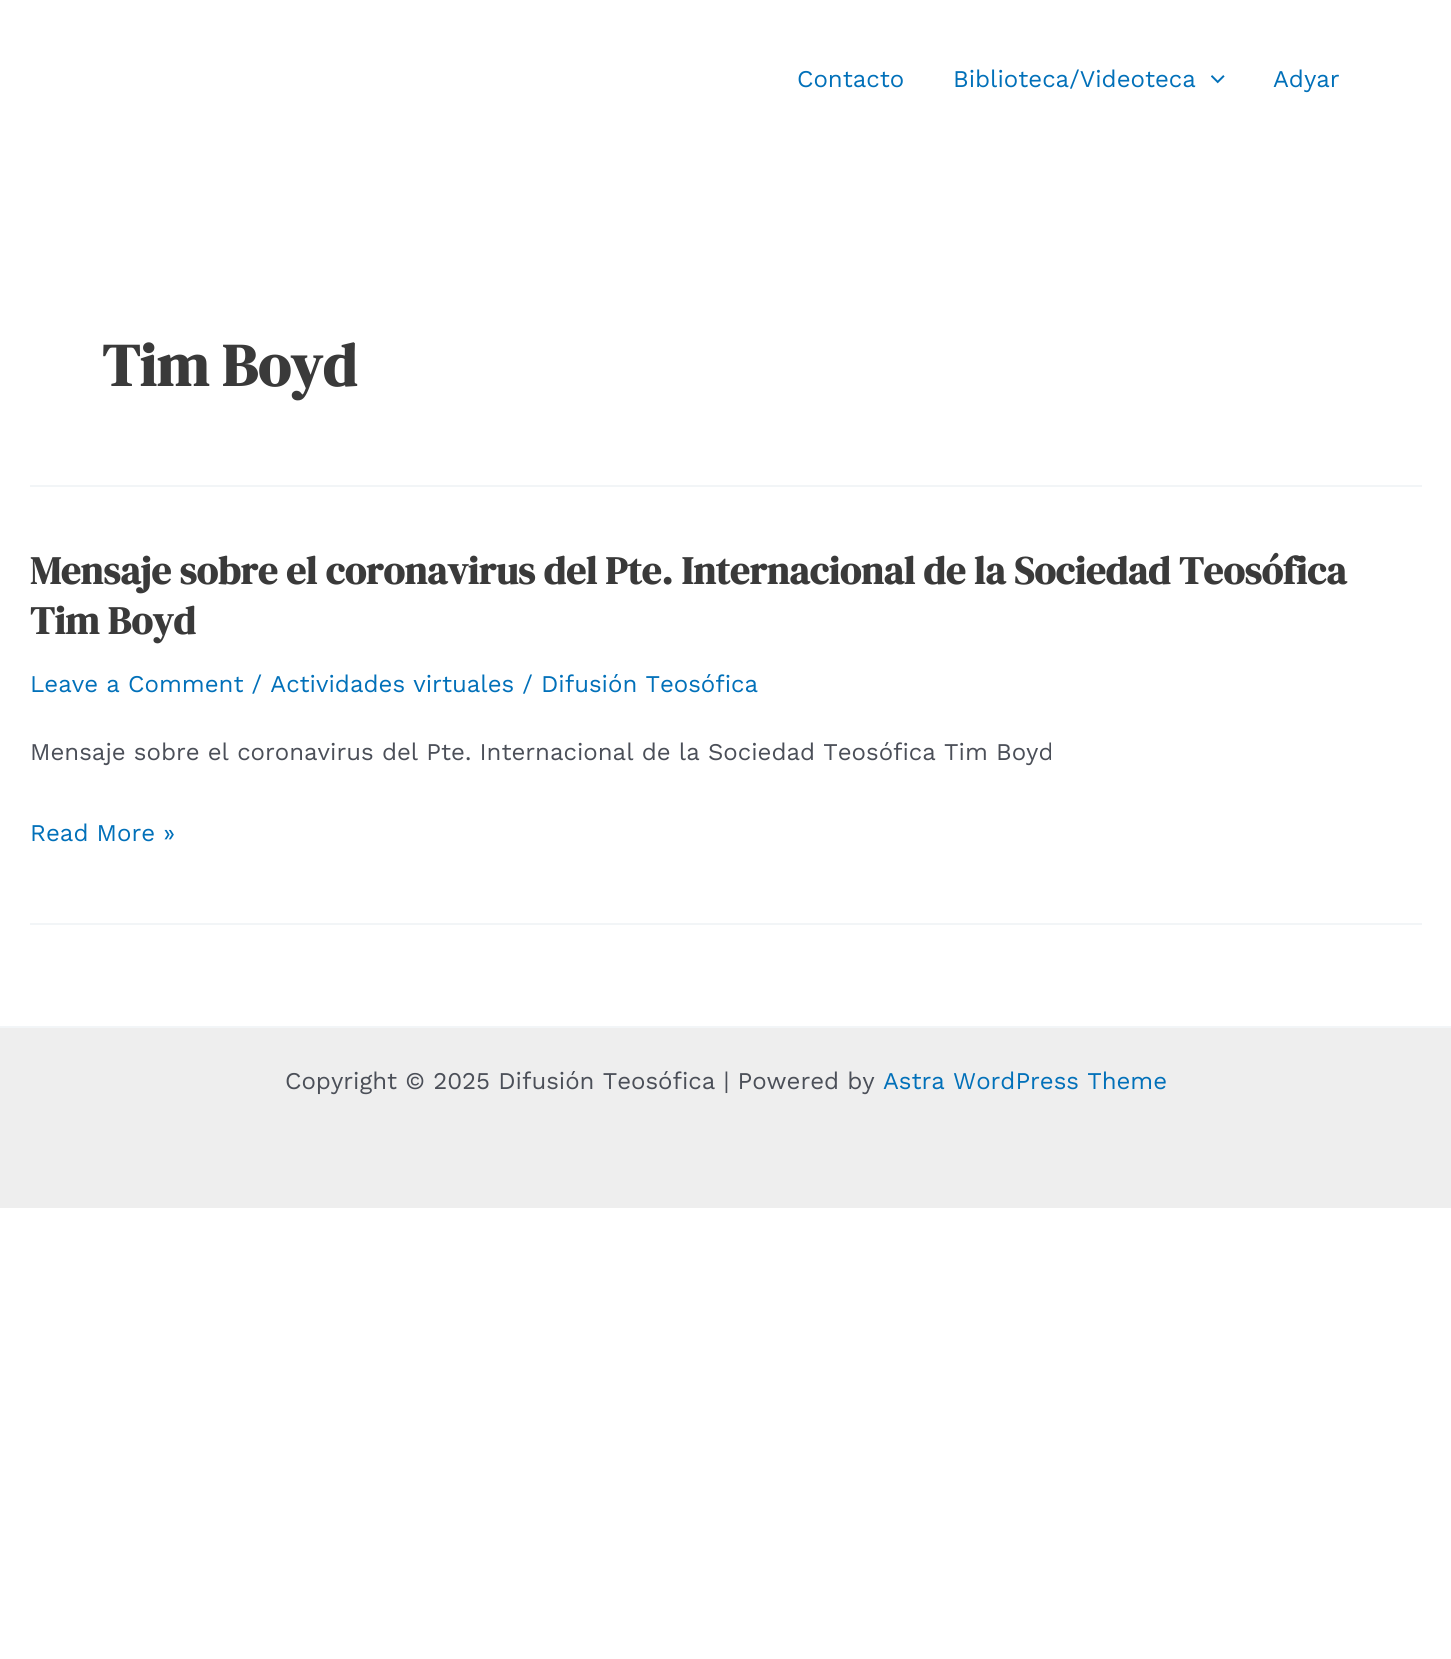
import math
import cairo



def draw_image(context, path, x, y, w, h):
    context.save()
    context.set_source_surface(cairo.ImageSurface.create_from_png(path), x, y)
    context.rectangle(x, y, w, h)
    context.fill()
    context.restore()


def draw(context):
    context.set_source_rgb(1, 1, 1)
    context.paint()
    draw_image(context, "images/1.png", 1211, 75, 14, 9)
    context.set_source_rgb(242 / 255, 245 / 255, 247 / 255)
    context.rectangle(30, 485, 1392, 2)
    context.fill()
    context.rectangle(30, 923, 1392, 2)
    context.fill()
    context.set_source_rgb(238 / 255, 238 / 255, 238 / 255)
    context.rectangle(0, 1028, 1451, 180)
    context.fill()
    context.set_source_rgb(242 / 255, 245 / 255, 247 / 255)
    context.rectangle(0, 1026, 1451, 2)
    context.fill()
    context.select_font_face("Work Sans")
    context.set_font_size(24)
    context.set_source_rgb(1 / 255, 112 / 255, 185 / 255)
    context.move_to(797, 87)
    context.show_text("Contacto")
    context.move_to(953, 87)
    context.show_text("Biblioteca/Videoteca")
    context.move_to(1273, 87)
    context.show_text("Adyar")
    context.select_font_face("DM Serif Display", cairo.FontSlant.NORMAL, cairo.FontWeight.BOLD)
    context.set_font_size(60)
    context.set_source_rgb(58 / 255, 58 / 255, 58 / 255)
    context.move_to(102, 386)
    context.show_text("Tim Boyd")
    context.set_font_size(39)
    context.move_to(30, 584)
    context.show_text("Mensaje sobre el coronavirus del Pte. Internacional de la Sociedad Teosófica")
    context.move_to(30, 634)
    context.show_text("Tim Boyd")
    context.select_font_face("Work Sans")
    context.set_font_size(24)
    context.set_source_rgb(1 / 255, 112 / 255, 185 / 255)
    context.move_to(30, 692)
    context.show_text("Leave a Comment / Actividades virtuales / Difusión Teosófica")
    context.set_source_rgb(75 / 255, 79 / 255, 88 / 255)
    context.move_to(30, 760)
    context.show_text("Mensaje sobre el coronavirus del Pte. Internacional de la Sociedad Teosófica Tim Boyd")
    context.set_source_rgb(1 / 255, 112 / 255, 185 / 255)
    context.move_to(30, 841)
    context.show_text("Read More »")
    context.set_source_rgb(75 / 255, 79 / 255, 88 / 255)
    context.move_to(285, 1089)
    context.show_text("Copyright © 2025 Difusión Teosófica | Powered by")
    context.set_source_rgb(1 / 255, 112 / 255, 185 / 255)
    context.move_to(883, 1089)
    context.show_text("Astra WordPress Theme")


surface = cairo.ImageSurface(cairo.Format.RGB24, 1451, 1659)
context = cairo.Context(surface)
options = cairo.FontOptions()
options.set_hint_metrics(cairo.HintMetrics.OFF)
options.set_hint_style(cairo.HintStyle.NONE)
context.set_font_options(options)
context.set_miter_limit(4)
draw(context)
surface.write_to_png("out.png")
